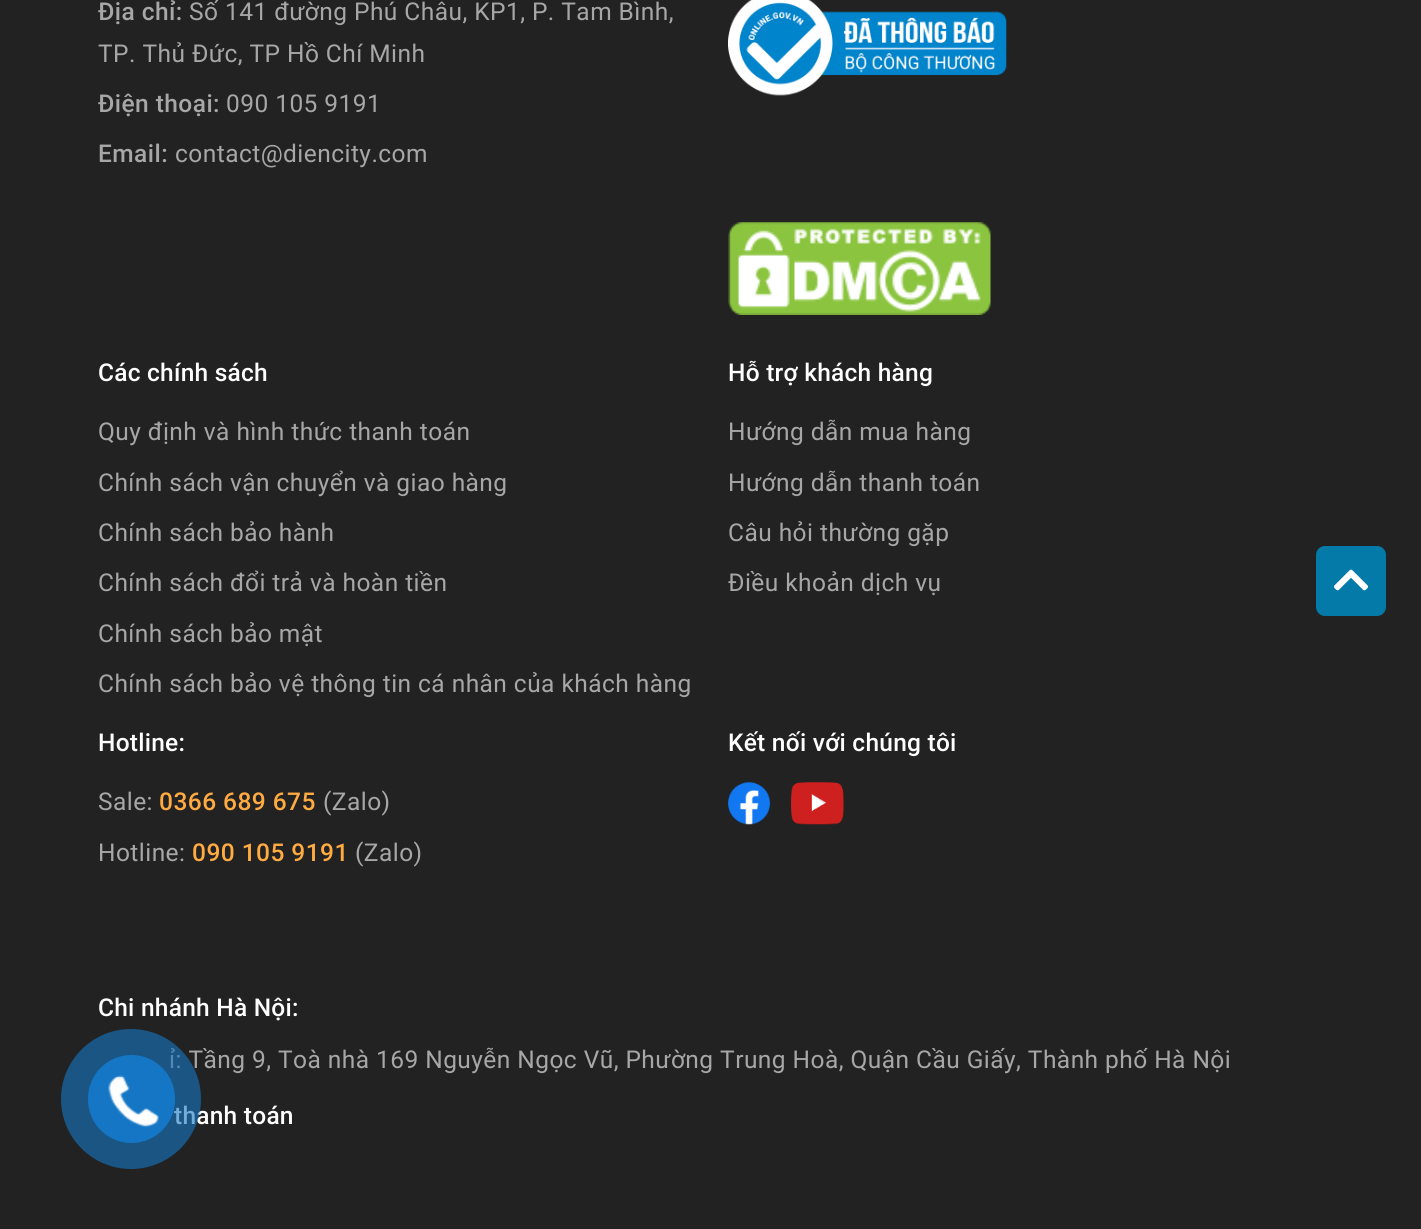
import math
import cairo



def draw_spaced(context, x, y, s, letter, word):
    context.move_to(x, y)
    for ch in s:
        context.show_text(ch)
        context.rel_move_to(letter + word * (ch == ' '), 0)


def rounded_rect(context, x, y, w, h, r):
    context.new_sub_path()
    for i, (u, v) in enumerate([(x + w - r, y + h - r), (x + r, y + h - r), (x + r, y + r), (x + w - r, y + r)]):
        context.arc(u, v, r, i * math.pi / 2, (i + 1) * math.pi / 2)
    context.close_path()


def draw_image(context, path, x, y, w, h):
    context.save()
    context.set_source_surface(cairo.ImageSurface.create_from_png(path), x, y)
    context.rectangle(x, y, w, h)
    context.fill()
    context.restore()


def draw(context):
    context.set_source_rgb(34 / 255, 34 / 255, 34 / 255)
    context.paint()
    draw_image(context, "images/1.png", 728, 0, 279, 96)
    draw_image(context, "images/2.png", 728, 222, 263, 93)
    draw_image(context, "images/3.png", 728, 782, 42, 43)
    draw_image(context, "images/4.png", 791, 782, 53, 43)
    context.set_source_rgb(3 / 255, 122 / 255, 168 / 255)
    rounded_rect(context, 1316, 546, 70, 70, 9)
    context.fill()
    draw_image(context, "images/5.png", 1334, 569, 34, 22)
    context.select_font_face("Roboto Medium")
    context.set_font_size(24.5)
    context.set_source_rgb(167 / 255, 167 / 255, 167 / 255)
    draw_spaced(context, 98, 20, "Địa chỉ:", 0.45, 0)
    context.select_font_face("Roboto")
    draw_spaced(context, 189, 20, "Số 141 đường Phú Châu, KP1, P. Tam Bình,", 0.45, 0)
    draw_spaced(context, 98, 62, "TP. Thủ Đức, TP Hồ Chí Minh", 0.45, 0)
    context.select_font_face("Roboto Medium")
    draw_spaced(context, 98, 112, "Điện thoại:", 0.45, 0)
    context.select_font_face("Roboto")
    draw_spaced(context, 226, 112, "090 105 9191", 0.45, 0)
    context.select_font_face("Roboto Medium")
    draw_spaced(context, 98, 162, "Email:", 0.45, 0)
    context.select_font_face("Roboto")
    draw_spaced(context, 175, 162, "contact@diencity.com", 0.45, 0)
    context.select_font_face("Roboto Medium")
    context.set_source_rgb(1, 1, 1)
    draw_spaced(context, 98, 381, "Các chính sách", 0.25, 0)
    context.select_font_face("Roboto")
    context.set_source_rgb(167 / 255, 167 / 255, 167 / 255)
    draw_spaced(context, 98, 440, "Quy định và hình thức thanh toán", 0.45, 0)
    draw_spaced(context, 98, 491, "Chính sách vận chuyển và giao hàng", 0.45, 0)
    draw_spaced(context, 98, 541, "Chính sách bảo hành", 0.45, 0)
    draw_spaced(context, 98, 591, "Chính sách đổi trả và hoàn tiền", 0.45, 0)
    draw_spaced(context, 98, 642, "Chính sách bảo mật", 0.45, 0)
    draw_spaced(context, 98, 692, "Chính sách bảo vệ thông tin cá nhân của khách hàng", 0.45, 0)
    context.select_font_face("Roboto Medium")
    context.set_source_rgb(1, 1, 1)
    draw_spaced(context, 728, 381, "Hỗ trợ khách hàng", 0.25, 0)
    context.select_font_face("Roboto")
    context.set_source_rgb(167 / 255, 167 / 255, 167 / 255)
    draw_spaced(context, 728, 440, "Hướng dẫn mua hàng", 0.45, 0)
    draw_spaced(context, 728, 491, "Hướng dẫn thanh toán", 0.45, 0)
    draw_spaced(context, 728, 541, "Câu hỏi thường gặp", 0.45, 0)
    draw_spaced(context, 728, 591, "Điều khoản dịch vụ", 0.45, 0)
    context.select_font_face("Roboto Medium")
    context.set_source_rgb(1, 1, 1)
    draw_spaced(context, 98, 751, "Hotline:", 0.25, 0)
    context.select_font_face("Roboto")
    context.set_source_rgb(167 / 255, 167 / 255, 167 / 255)
    draw_spaced(context, 98, 810, "Sale:", 0.45, 0)
    context.select_font_face("Roboto Medium")
    context.set_source_rgb(1, 171 / 255, 65 / 255)
    draw_spaced(context, 159, 810, "0366 689 675", 0.45, 0)
    context.select_font_face("Roboto")
    context.set_source_rgb(167 / 255, 167 / 255, 167 / 255)
    draw_spaced(context, 323, 810, "(Zalo)", 0.45, 0)
    draw_spaced(context, 98, 861, "Hotline:", 0.45, 0)
    context.select_font_face("Roboto Medium")
    context.set_source_rgb(1, 171 / 255, 65 / 255)
    draw_spaced(context, 192, 861, "090 105 9191", 0.45, 0)
    context.select_font_face("Roboto")
    context.set_source_rgb(167 / 255, 167 / 255, 167 / 255)
    draw_spaced(context, 355, 861, "(Zalo)", 0.45, 0)
    context.select_font_face("Roboto Medium")
    context.set_source_rgb(1, 1, 1)
    draw_spaced(context, 728, 751, "Kết nối với chúng tôi", 0.25, 0)
    draw_spaced(context, 98, 1016, "Chi nhánh Hà Nội:", 0.25, 0)
    context.select_font_face("Roboto")
    context.set_source_rgb(167 / 255, 167 / 255, 167 / 255)
    draw_spaced(context, 169, 1068, "ỉ: Tầng 9, Toà nhà 169 Nguyễn Ngọc Vũ, Phường Trung Hoà, Quận Cầu Giấy, Thành phố Hà Nội", 0.45, 0)
    context.select_font_face("Roboto Medium")
    context.set_source_rgb(1, 1, 1)
    draw_spaced(context, 174, 1124, "thanh toán", 0.25, 0)
    context.set_source_rgb(21 / 255, 118 / 255, 196 / 255)
    rounded_rect(context, 88, 1055, 87, 88, 43.5)
    context.fill()
    context.set_source_rgba(21 / 255, 118 / 255, 196 / 255, 0.6)
    context.arc(131, 1099, 70, 0, 2 * math.pi)
    context.fill()
    draw_image(context, "images/6.png", 108, 1075, 51, 53)


surface = cairo.ImageSurface(cairo.Format.RGB24, 1421, 1229)
context = cairo.Context(surface)
options = cairo.FontOptions()
options.set_hint_metrics(cairo.HintMetrics.OFF)
options.set_hint_style(cairo.HintStyle.NONE)
context.set_font_options(options)
context.set_miter_limit(4)
draw(context)
surface.write_to_png("out.png")
